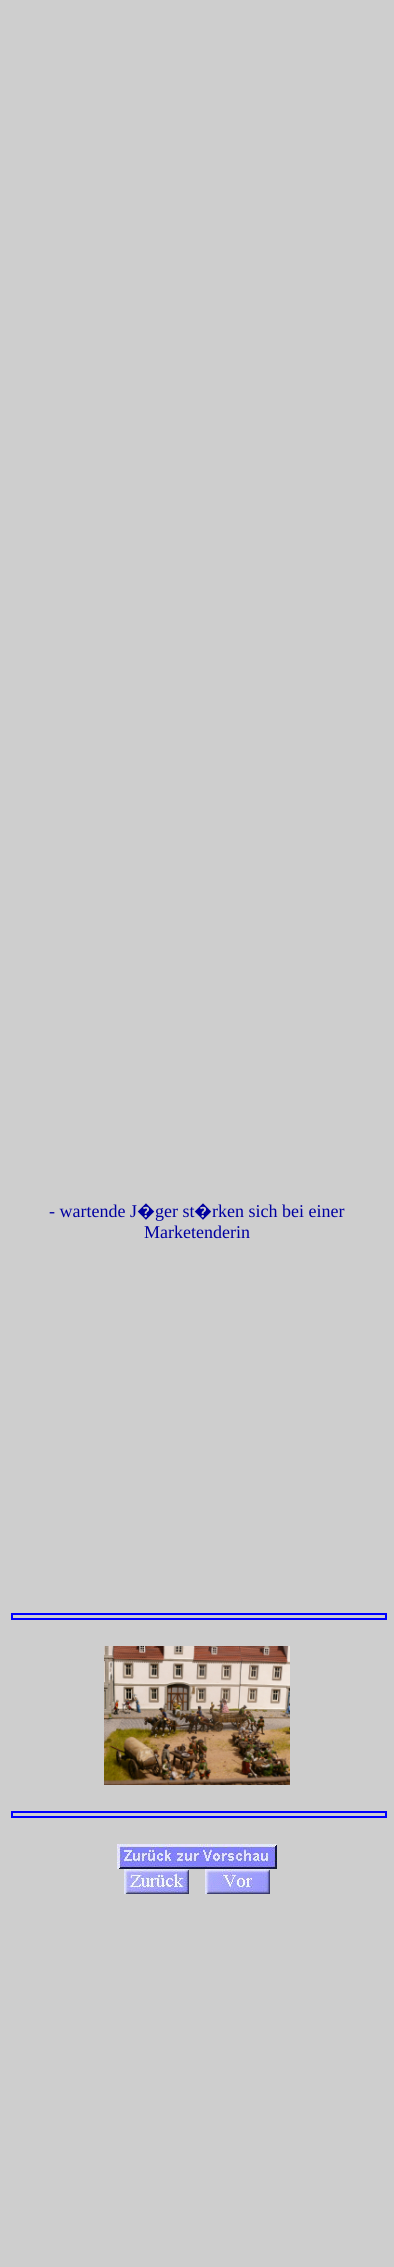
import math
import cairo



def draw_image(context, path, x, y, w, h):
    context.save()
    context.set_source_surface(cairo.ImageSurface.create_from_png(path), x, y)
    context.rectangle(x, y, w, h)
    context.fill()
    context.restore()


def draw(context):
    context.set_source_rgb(206 / 255, 206 / 255, 206 / 255)
    context.paint()
    context.rectangle(12, 1614, 374, 5)
    context.set_source_rgb(0, 0, 1)
    context.stroke()
    draw_image(context, "images/1.png", 104, 1646, 186, 139)
    context.rectangle(12, 1812, 374, 5)
    context.stroke()
    draw_image(context, "images/2.png", 117, 1844, 160, 25)
    draw_image(context, "images/3.png", 124, 1869, 65, 25)
    draw_image(context, "images/4.png", 205, 1869, 65, 25)
    context.select_font_face("Liberation Serif")
    context.set_font_size(18)
    context.set_source_rgb(0, 0, 160 / 255)
    context.move_to(49, 1217)
    context.show_text("- wartende J")
    context.select_font_face("Noto Sans")
    context.move_to(137, 1217)
    context.show_text("�")
    context.select_font_face("Liberation Serif")
    context.move_to(155, 1217)
    context.show_text("ger st")
    context.select_font_face("Noto Sans")
    context.move_to(194, 1217)
    context.show_text("�")
    context.select_font_face("Liberation Serif")
    context.move_to(212, 1217)
    context.show_text("rken sich bei einer")
    context.move_to(144, 1238)
    context.show_text("Marketenderin")


surface = cairo.ImageSurface(cairo.Format.RGB24, 394, 2267)
context = cairo.Context(surface)
options = cairo.FontOptions()
options.set_hint_metrics(cairo.HintMetrics.OFF)
options.set_hint_style(cairo.HintStyle.NONE)
context.set_font_options(options)
context.set_miter_limit(4)
draw(context)
surface.write_to_png("out.png")
